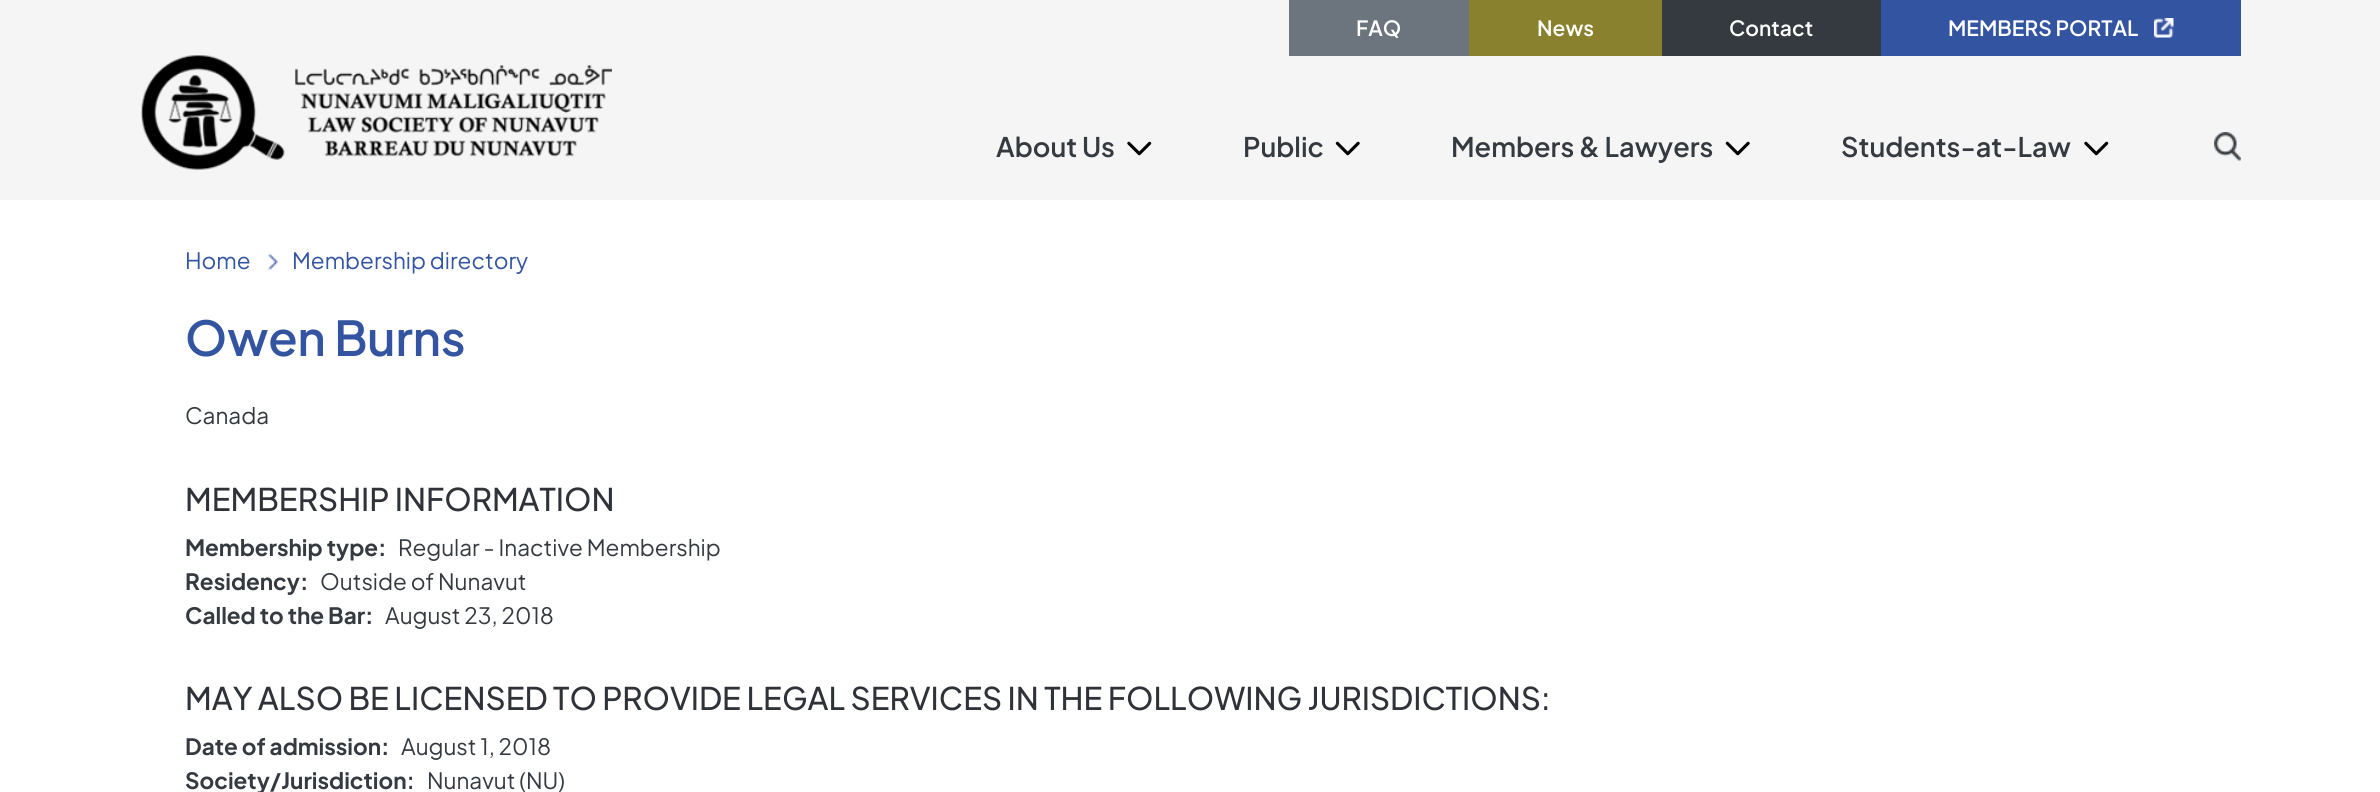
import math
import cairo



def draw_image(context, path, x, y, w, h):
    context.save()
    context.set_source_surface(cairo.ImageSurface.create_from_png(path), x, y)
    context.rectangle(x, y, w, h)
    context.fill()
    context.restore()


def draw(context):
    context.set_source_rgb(1, 1, 1)
    context.paint()
    context.set_source_rgb(245 / 255, 245 / 255, 245 / 255)
    context.rectangle(0, 0, 2380, 200)
    context.fill()
    context.set_source_rgb(108 / 255, 117 / 255, 125 / 255)
    context.rectangle(1289, 0, 180, 56)
    context.fill()
    context.set_source_rgb(138 / 255, 129 / 255, 46 / 255)
    context.rectangle(1469, 0, 193, 56)
    context.fill()
    context.set_source_rgb(52 / 255, 58 / 255, 64 / 255)
    context.rectangle(1662, 0, 219, 56)
    context.fill()
    context.set_source_rgb(51 / 255, 84 / 255, 160 / 255)
    context.rectangle(1881, 0, 360, 56)
    context.fill()
    draw_image(context, "images/1.png", 2154, 18, 20, 20)
    draw_image(context, "images/2.png", 141, 55, 471, 115)
    draw_image(context, "images/3.png", 1127, 141, 25, 15)
    draw_image(context, "images/4.png", 1335, 141, 25, 15)
    draw_image(context, "images/4.png", 1725, 141, 25, 15)
    draw_image(context, "images/3.png", 2084, 141, 25, 15)
    draw_image(context, "images/5.png", 2214, 132, 27, 29)
    draw_image(context, "images/6.png", 268, 253, 10, 17)
    context.select_font_face("Plus Jakarta Sans SemiBold")
    context.set_font_size(21)
    context.set_source_rgb(1, 1, 1)
    context.move_to(1356, 36)
    context.show_text("FAQ")
    context.move_to(1537, 36)
    context.show_text("News")
    context.move_to(1729, 36)
    context.show_text("Contact")
    context.move_to(1948, 36)
    context.show_text("MEMBERS PORTAL")
    context.set_font_size(27)
    context.set_source_rgb(52 / 255, 58 / 255, 64 / 255)
    context.move_to(996, 157)
    context.show_text("About Us")
    context.move_to(1243, 157)
    context.show_text("Public")
    context.move_to(1451, 157)
    context.show_text("Members & Lawyers")
    context.move_to(1841, 157)
    context.show_text("Students-at-Law")
    context.select_font_face("Plus Jakarta Sans")
    context.set_font_size(22.5)
    context.set_source_rgb(51 / 255, 84 / 255, 160 / 255)
    context.move_to(185, 269)
    context.show_text("Home")
    context.move_to(292, 269)
    context.show_text("Membership directory")
    context.select_font_face("Plus Jakarta Sans SemiBold")
    context.set_font_size(48)
    context.move_to(185, 356)
    context.show_text("Owen Burns")
    context.select_font_face("Plus Jakarta Sans")
    context.set_font_size(22.5)
    context.set_source_rgb(52 / 255, 58 / 255, 64 / 255)
    context.move_to(185, 424)
    context.show_text("Canada")
    context.select_font_face("Plus Jakarta Sans Medium")
    context.set_font_size(31.2)
    context.set_source_rgb(47 / 255, 50 / 255, 56 / 255)
    context.move_to(185, 511)
    context.show_text("MEMBERSHIP INFORMATION")
    context.select_font_face("Plus Jakarta Sans", cairo.FontSlant.NORMAL, cairo.FontWeight.BOLD)
    context.set_font_size(22.5)
    context.set_source_rgb(52 / 255, 58 / 255, 64 / 255)
    context.move_to(185, 556)
    context.show_text("Membership type:")
    context.select_font_face("Plus Jakarta Sans")
    context.move_to(398, 556)
    context.show_text("Regular - Inactive Membership")
    context.select_font_face("Plus Jakarta Sans", cairo.FontSlant.NORMAL, cairo.FontWeight.BOLD)
    context.move_to(185, 590)
    context.show_text("Residency:")
    context.select_font_face("Plus Jakarta Sans")
    context.move_to(320, 590)
    context.show_text("Outside of Nunavut")
    context.select_font_face("Plus Jakarta Sans", cairo.FontSlant.NORMAL, cairo.FontWeight.BOLD)
    context.move_to(185, 624)
    context.show_text("Called to the Bar:")
    context.select_font_face("Plus Jakarta Sans")
    context.move_to(385, 624)
    context.show_text("August 23, 2018")
    context.select_font_face("Plus Jakarta Sans Medium")
    context.set_font_size(31.2)
    context.set_source_rgb(47 / 255, 50 / 255, 56 / 255)
    context.move_to(185, 710)
    context.show_text("MAY ALSO BE LICENSED TO PROVIDE LEGAL SERVICES IN THE FOLLOWING JURISDICTIONS:")
    context.select_font_face("Plus Jakarta Sans", cairo.FontSlant.NORMAL, cairo.FontWeight.BOLD)
    context.set_font_size(22.5)
    context.set_source_rgb(52 / 255, 58 / 255, 64 / 255)
    context.move_to(185, 755)
    context.show_text("Date of admission:")
    context.select_font_face("Plus Jakarta Sans")
    context.move_to(401, 755)
    context.show_text("August 1, 2018")
    context.select_font_face("Plus Jakarta Sans", cairo.FontSlant.NORMAL, cairo.FontWeight.BOLD)
    context.move_to(185, 789)
    context.show_text("Society/Jurisdiction:")
    context.select_font_face("Plus Jakarta Sans")
    context.move_to(427, 789)
    context.show_text("Nunavut (NU)")


surface = cairo.ImageSurface(cairo.Format.RGB24, 2380, 792)
context = cairo.Context(surface)
options = cairo.FontOptions()
options.set_hint_metrics(cairo.HintMetrics.OFF)
options.set_hint_style(cairo.HintStyle.NONE)
context.set_font_options(options)
context.set_miter_limit(4)
draw(context)
surface.write_to_png("out.png")
